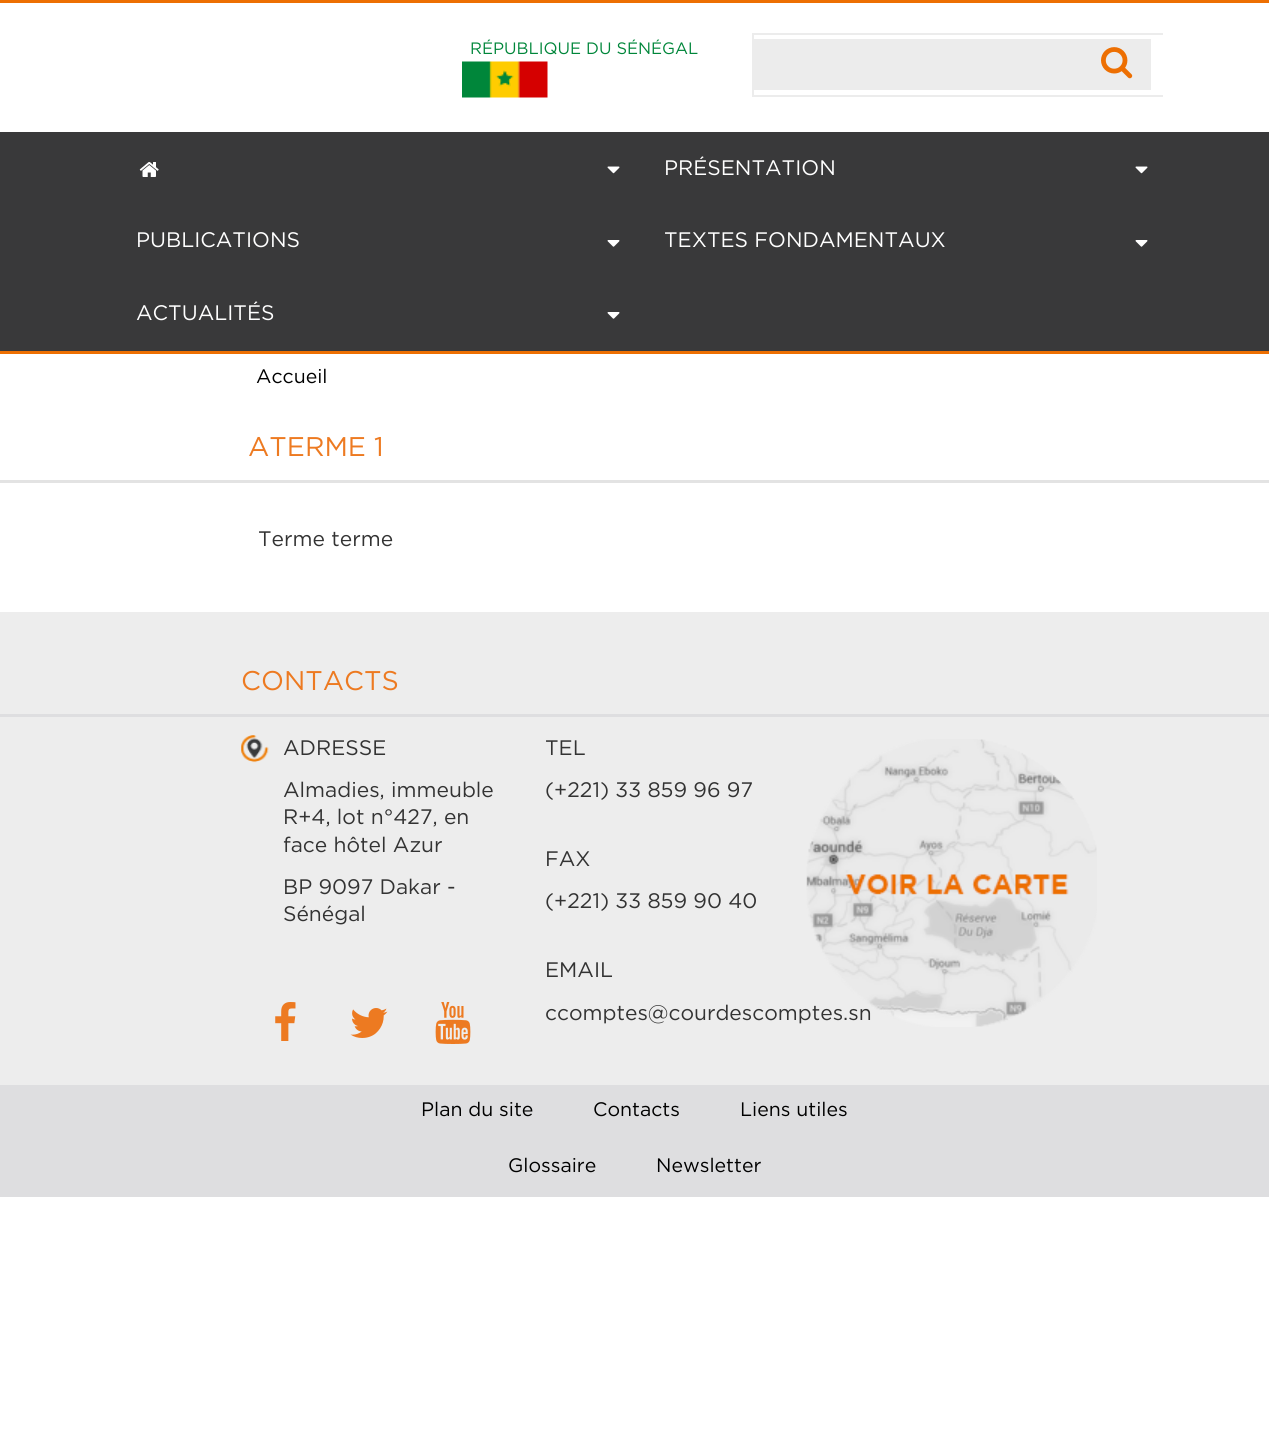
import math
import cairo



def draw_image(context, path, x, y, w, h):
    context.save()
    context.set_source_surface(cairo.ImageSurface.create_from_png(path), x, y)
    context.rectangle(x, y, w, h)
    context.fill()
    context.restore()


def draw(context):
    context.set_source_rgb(1, 1, 1)
    context.paint()
    context.set_source_rgb(237 / 255, 111 / 255, 2 / 255)
    context.rectangle(0, 0, 1269, 3)
    context.fill()
    draw_image(context, "images/1.png", 462, 61, 86, 37)
    context.set_source_rgb(236 / 255, 236 / 255, 236 / 255)
    context.rectangle(752, 33, 411, 2)
    context.fill()
    context.rectangle(752, 95, 411, 2)
    context.fill()
    context.rectangle(752, 33, 2, 63)
    context.fill()
    context.rectangle(754, 39, 397, 51)
    context.fill()
    draw_image(context, "images/2.png", 1101, 47, 32, 32)
    context.set_source_rgb(57 / 255, 57 / 255, 58 / 255)
    context.rectangle(0, 132, 1269, 219)
    context.fill()
    context.set_source_rgb(237 / 255, 111 / 255, 2 / 255)
    context.rectangle(0, 351, 1269, 3)
    context.fill()
    draw_image(context, "images/3.png", 139, 162, 20, 15)
    draw_image(context, "images/4.png", 607, 166, 13, 8)
    draw_image(context, "images/4.png", 1135, 166, 13, 8)
    draw_image(context, "images/5.png", 607, 240, 13, 7)
    draw_image(context, "images/5.png", 1135, 240, 13, 7)
    draw_image(context, "images/5.png", 607, 312, 13, 7)
    context.set_source_rgb(227 / 255, 227 / 255, 227 / 255)
    context.rectangle(0, 480, 1269, 3)
    context.fill()
    context.set_source_rgb(237 / 255, 237 / 255, 237 / 255)
    context.rectangle(0, 612, 1269, 473)
    context.fill()
    context.set_source_rgb(222 / 255, 222 / 255, 224 / 255)
    context.rectangle(0, 714, 1269, 3)
    context.fill()
    draw_image(context, "images/6.png", 241, 735, 28, 28)
    draw_image(context, "images/7.png", 275, 1002, 21, 39)
    draw_image(context, "images/8.png", 350, 1008, 38, 30)
    draw_image(context, "images/9.png", 435, 1002, 36, 42)
    context.rectangle(0, 1085, 1269, 112)
    context.fill()
    context.select_font_face("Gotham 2")
    context.set_font_size(16.5)
    context.set_source_rgb(0, 134 / 255, 58 / 255)
    context.move_to(470, 54)
    context.show_text("RÉPUBLIQUE DU SÉNÉGAL")
    context.set_font_size(21)
    context.set_source_rgb(1, 1, 1)
    context.move_to(664, 175)
    context.show_text("PRÉSENTATION")
    context.move_to(136, 247)
    context.show_text("PUBLICATIONS")
    context.move_to(664, 247)
    context.show_text("TEXTES FONDAMENTAUX")
    context.move_to(136, 320)
    context.show_text("ACTUALITÉS")
    context.select_font_face("Gotham")
    context.set_font_size(19.5)
    context.set_source_rgb(0, 0, 0)
    context.move_to(256, 383)
    context.show_text("Accueil")
    context.select_font_face("Gotham 2")
    context.set_font_size(27)
    context.set_source_rgb(237 / 255, 122 / 255, 33 / 255)
    context.move_to(248, 456)
    context.show_text("ATERME 1")
    context.select_font_face("Gotham")
    context.set_font_size(21)
    context.set_source_rgb(51 / 255, 51 / 255, 51 / 255)
    context.move_to(258, 546)
    context.show_text("Terme terme")
    context.select_font_face("Gotham 2")
    context.set_font_size(27)
    context.set_source_rgb(237 / 255, 122 / 255, 33 / 255)
    context.move_to(241, 690)
    context.show_text("CONTACTS")
    context.select_font_face("Gotham")
    context.set_font_size(21)
    context.set_source_rgb(51 / 255, 51 / 255, 51 / 255)
    context.move_to(283, 755)
    context.show_text("ADRESSE")
    context.move_to(283, 797)
    context.show_text("Almadies, immeuble")
    context.move_to(283, 824)
    context.show_text("R+4, lot n°427, en")
    context.move_to(283, 852)
    context.show_text("face hôtel Azur")
    context.move_to(283, 894)
    context.show_text("BP 9097 Dakar -")
    context.move_to(283, 921)
    context.show_text("Sénégal")
    context.move_to(545, 755)
    context.show_text("TEL")
    context.move_to(545, 797)
    context.show_text("(+221) 33 859 96 97")
    context.move_to(545, 866)
    context.show_text("FAX")
    context.move_to(545, 908)
    context.show_text("(+221) 33 859 90 40")
    context.move_to(545, 977)
    context.show_text("EMAIL")
    context.move_to(545, 1020)
    context.show_text("ccomptes@courdescomptes.sn")
    draw_image(context, "images/10.png", 806, 739, 291, 288)
    context.set_font_size(19.5)
    context.set_source_rgb(0, 0, 0)
    context.move_to(421, 1116)
    context.show_text("Plan du site")
    context.move_to(593, 1116)
    context.show_text("Contacts")
    context.move_to(740, 1116)
    context.show_text("Liens utiles")
    context.move_to(508, 1172)
    context.show_text("Glossaire")
    context.move_to(656, 1172)
    context.show_text("Newsletter")


surface = cairo.ImageSurface(cairo.Format.RGB24, 1269, 1444)
context = cairo.Context(surface)
options = cairo.FontOptions()
options.set_hint_metrics(cairo.HintMetrics.OFF)
options.set_hint_style(cairo.HintStyle.NONE)
context.set_font_options(options)
context.set_miter_limit(4)
draw(context)
surface.write_to_png("out.png")
